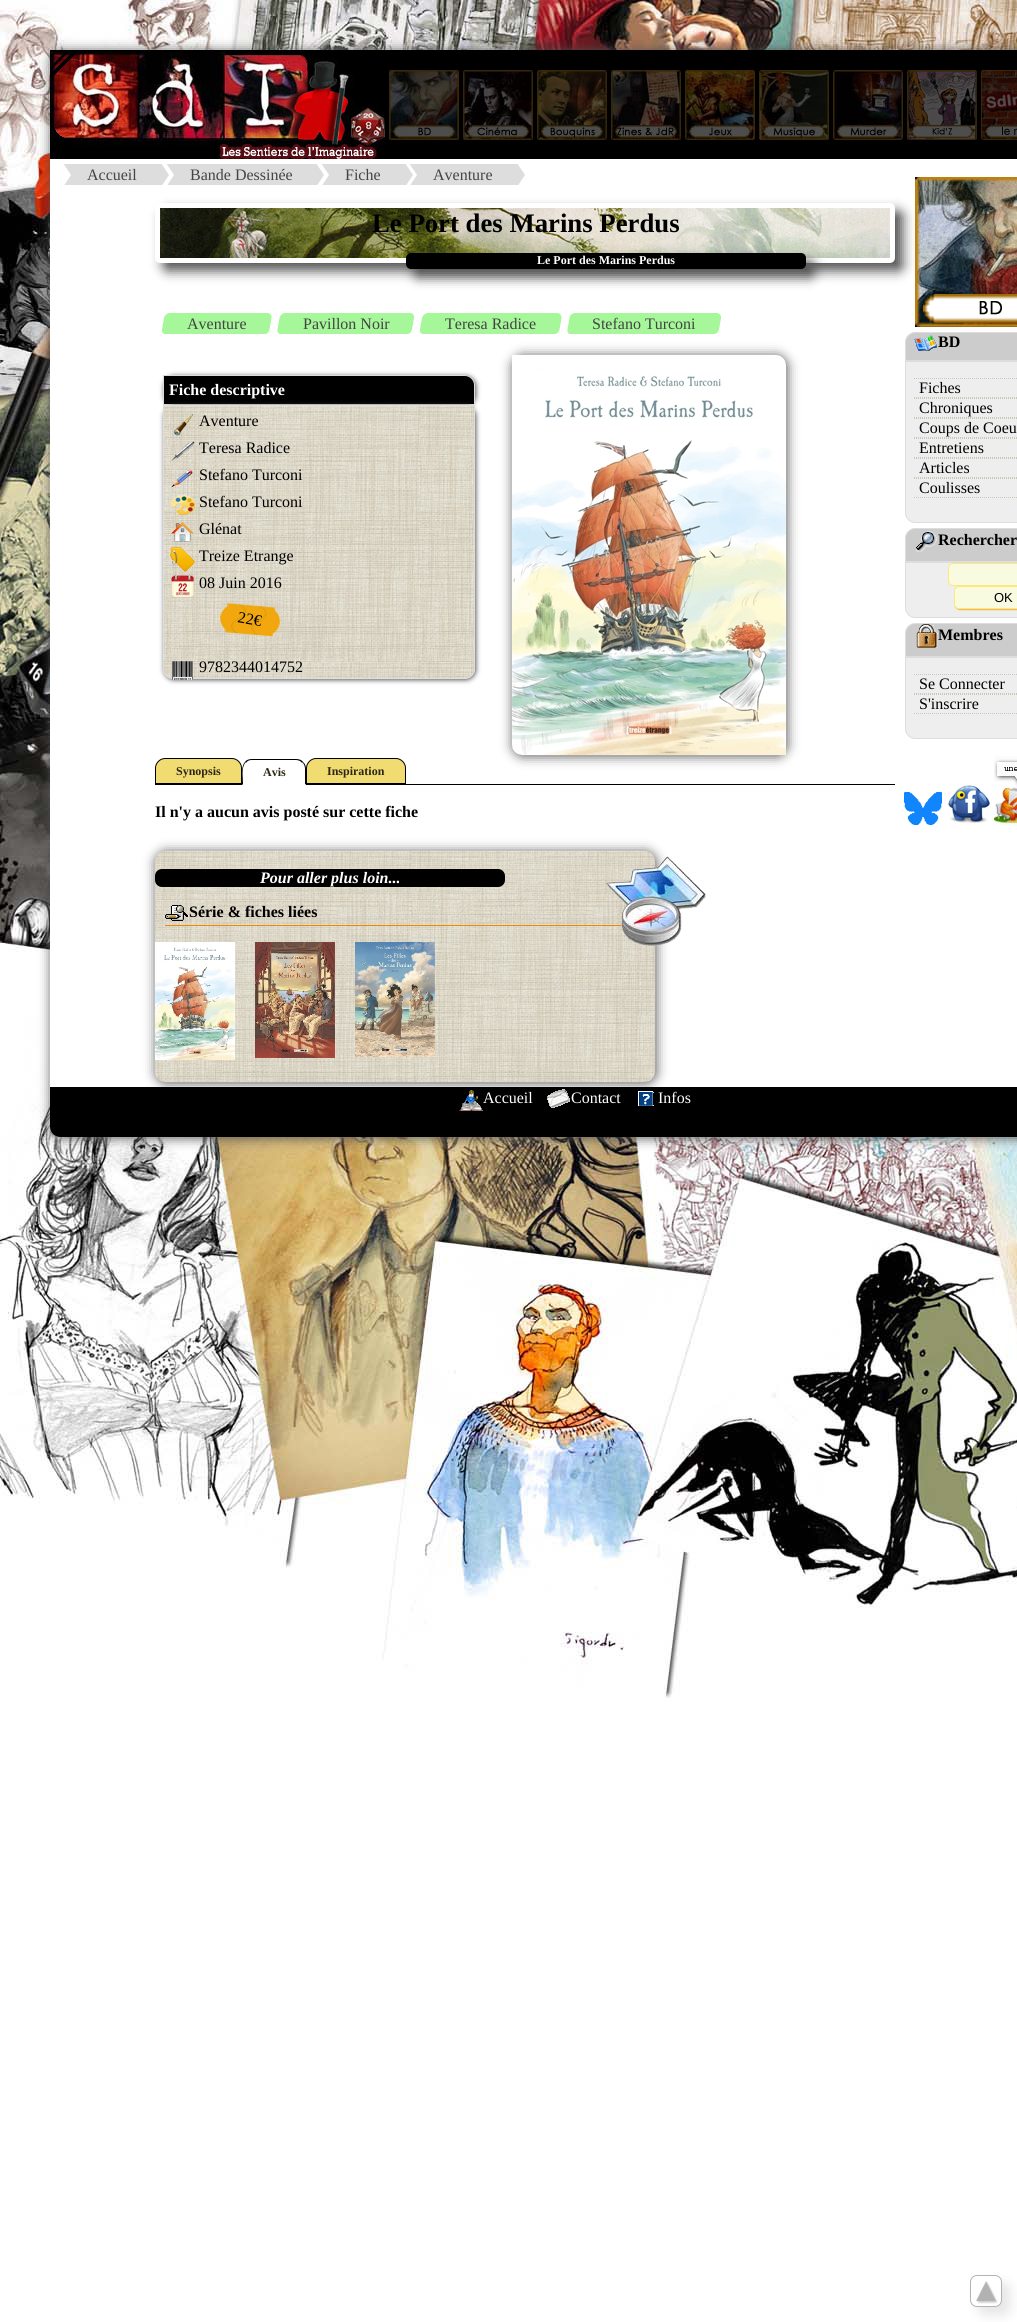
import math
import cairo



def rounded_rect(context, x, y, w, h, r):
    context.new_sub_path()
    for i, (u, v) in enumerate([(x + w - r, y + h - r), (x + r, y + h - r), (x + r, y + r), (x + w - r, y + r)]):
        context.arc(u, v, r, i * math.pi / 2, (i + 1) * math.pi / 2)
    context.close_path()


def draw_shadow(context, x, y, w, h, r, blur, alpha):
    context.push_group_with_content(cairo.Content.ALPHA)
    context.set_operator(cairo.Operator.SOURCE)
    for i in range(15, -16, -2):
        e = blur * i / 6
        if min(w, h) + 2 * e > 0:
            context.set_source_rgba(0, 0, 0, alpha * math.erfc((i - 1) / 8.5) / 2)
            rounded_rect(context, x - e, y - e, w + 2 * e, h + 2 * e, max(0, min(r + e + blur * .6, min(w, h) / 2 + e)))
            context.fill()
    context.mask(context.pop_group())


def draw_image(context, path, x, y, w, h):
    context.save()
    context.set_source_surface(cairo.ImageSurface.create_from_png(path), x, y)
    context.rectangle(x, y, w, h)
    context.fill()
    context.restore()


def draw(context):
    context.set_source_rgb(1, 1, 1)
    context.paint()
    draw_image(context, "images/1.png", 0, 0, 1017, 1702)
    context.set_source_rgb(85 / 255, 85 / 255, 85 / 255)
    draw_shadow(context, 51, 51, 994, 1087, 10, 6, 1)
    context.set_source_rgb(1, 1, 1)
    context.new_path()
    context.move_to(50, 50)
    context.line_to(1017, 50)
    context.curve_to(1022.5, 50, 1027, 54.5, 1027, 60)
    context.line_to(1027, 1127)
    context.curve_to(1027, 1132.5, 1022.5, 1137, 1017, 1137)
    context.line_to(60, 1137)
    context.curve_to(54.5, 1137, 50, 1132.5, 50, 1127)
    context.close_path()
    context.fill()
    context.set_source_rgb(0, 0, 0)
    context.rectangle(385, 50, 632, 109)
    context.fill()
    draw_image(context, "images/2.png", 50, 50, 335, 109)
    draw_image(context, "images/3.png", 389, 70, 70, 70)
    draw_image(context, "images/4.png", 463, 70, 70, 70)
    draw_image(context, "images/5.png", 537, 70, 70, 70)
    draw_image(context, "images/6.png", 611, 70, 70, 70)
    draw_image(context, "images/7.png", 685, 70, 70, 70)
    draw_image(context, "images/8.png", 759, 70, 70, 70)
    draw_image(context, "images/9.png", 833, 70, 70, 70)
    draw_image(context, "images/10.png", 907, 70, 70, 70)
    draw_image(context, "images/11.png", 981, 70, 36, 70)
    context.set_source_rgb(221 / 255, 221 / 255, 221 / 255)
    context.rectangle(71, 164, 82, 21)
    context.fill()
    context.save()
    context.rectangle(55, 164, 840, 21)
    context.clip()
    context.new_path()
    context.move_to(55, 151)
    context.line_to(71, 151)
    context.line_to(71, 175)
    context.close_path()
    context.move_to(71, 199)
    context.line_to(55, 199)
    context.line_to(71, 175)
    context.close_path()
    context.fill()
    context.new_path()
    context.move_to(153, 199)
    context.line_to(153, 151)
    context.line_to(169, 175)
    context.close_path()
    context.fill()
    context.restore()
    context.rectangle(174, 164, 134, 21)
    context.fill()
    context.save()
    context.rectangle(55, 164, 840, 21)
    context.clip()
    context.new_path()
    context.move_to(158, 151)
    context.line_to(174, 151)
    context.line_to(174, 175)
    context.close_path()
    context.move_to(174, 199)
    context.line_to(158, 199)
    context.line_to(174, 175)
    context.close_path()
    context.fill()
    context.new_path()
    context.move_to(308, 199)
    context.line_to(308, 151)
    context.line_to(324, 175)
    context.close_path()
    context.fill()
    context.restore()
    context.rectangle(329, 164, 68, 21)
    context.fill()
    context.save()
    context.rectangle(55, 164, 840, 21)
    context.clip()
    context.new_path()
    context.move_to(313, 151)
    context.line_to(329, 151)
    context.line_to(329, 175)
    context.close_path()
    context.move_to(329, 199)
    context.line_to(313, 199)
    context.line_to(329, 175)
    context.close_path()
    context.fill()
    context.new_path()
    context.move_to(397, 199)
    context.line_to(397, 151)
    context.line_to(413, 175)
    context.close_path()
    context.fill()
    context.restore()
    context.rectangle(417, 164, 92, 21)
    context.fill()
    context.save()
    context.rectangle(55, 164, 840, 21)
    context.clip()
    context.new_path()
    context.move_to(401, 151)
    context.line_to(417, 151)
    context.line_to(417, 175)
    context.close_path()
    context.move_to(417, 199)
    context.line_to(401, 199)
    context.line_to(417, 175)
    context.close_path()
    context.fill()
    context.new_path()
    context.move_to(509, 199)
    context.line_to(509, 151)
    context.line_to(525, 175)
    context.close_path()
    context.fill()
    context.restore()
    context.set_source_rgb(85 / 255, 85 / 255, 85 / 255)
    draw_shadow(context, 163, 211, 740, 60, 5, 6, 1)
    draw_image(context, "images/12.png", 160, 208, 730, 50)
    rounded_rect(context, 157.5, 205.5, 735, 55, 2.5)
    context.set_source_rgb(1, 1, 1)
    context.set_line_width(5)
    context.stroke()
    context.set_source_rgb(85 / 255, 85 / 255, 85 / 255)
    draw_shadow(context, 414, 261, 400, 16, 5, 6, 1)
    context.set_source_rgb(0, 0, 0)
    rounded_rect(context, 406, 253, 400, 16, 5)
    context.fill()
    context.set_source_rgb(166 / 255, 247 / 255, 153 / 255)
    context.rectangle(177, 313, 80, 21)
    context.fill()
    context.save()
    context.rectangle(155, 305, 740, 29)
    context.clip()
    context.new_path()
    context.move_to(170, 313)
    context.line_to(181, 313)
    context.line_to(177, 334.5)
    context.line_to(166, 334.5)
    context.curve_to(163.5, 334.5, 161.5, 332, 162, 329.5)
    context.line_to(164, 318)
    context.curve_to(164.5, 315.5, 167, 313, 170, 313)
    context.close_path()
    context.fill()
    context.new_path()
    context.move_to(256.5, 313)
    context.line_to(267.5, 313)
    context.curve_to(270, 313, 272, 315.5, 271.5, 318)
    context.line_to(269.5, 329.5)
    context.curve_to(269, 332, 266.5, 334.5, 263.5, 334.5)
    context.line_to(252.5, 334.5)
    context.close_path()
    context.fill()
    context.restore()
    context.rectangle(292, 313, 107, 21)
    context.fill()
    context.save()
    context.rectangle(155, 305, 740, 29)
    context.clip()
    context.new_path()
    context.move_to(285.5, 313)
    context.line_to(296.5, 313)
    context.line_to(292.5, 334.5)
    context.line_to(281.5, 334.5)
    context.curve_to(279, 334.5, 277, 332, 277.5, 329.5)
    context.line_to(279.5, 318)
    context.curve_to(280, 315.5, 282.5, 313, 285.5, 313)
    context.close_path()
    context.fill()
    context.new_path()
    context.move_to(399, 313)
    context.line_to(410, 313)
    context.curve_to(413, 313, 414.5, 315.5, 414, 318)
    context.line_to(412, 329.5)
    context.curve_to(411.5, 332, 409, 334.5, 406.5, 334.5)
    context.line_to(395.5, 334.5)
    context.close_path()
    context.fill()
    context.restore()
    context.rectangle(435, 313, 111, 21)
    context.fill()
    context.save()
    context.rectangle(155, 305, 740, 29)
    context.clip()
    context.new_path()
    context.move_to(428, 313)
    context.line_to(439, 313)
    context.line_to(435.5, 334.5)
    context.line_to(424.5, 334.5)
    context.curve_to(421.5, 334.5, 419.5, 332, 420, 329.5)
    context.line_to(422, 318)
    context.curve_to(422.5, 315.5, 425.5, 313, 428, 313)
    context.close_path()
    context.fill()
    context.new_path()
    context.move_to(546, 313)
    context.line_to(557, 313)
    context.curve_to(560, 313, 561.5, 315.5, 561.5, 318)
    context.line_to(559.5, 329.5)
    context.curve_to(559, 332, 556, 334.5, 553.5, 334.5)
    context.line_to(542.5, 334.5)
    context.close_path()
    context.fill()
    context.restore()
    context.rectangle(582, 313, 124, 21)
    context.fill()
    context.save()
    context.rectangle(155, 305, 740, 29)
    context.clip()
    context.new_path()
    context.move_to(575, 313)
    context.line_to(586, 313)
    context.line_to(582.5, 334.5)
    context.line_to(571.5, 334.5)
    context.curve_to(568.5, 334.5, 567, 332, 567.5, 329.5)
    context.line_to(569.5, 318)
    context.curve_to(569.5, 315.5, 572.5, 313, 575, 313)
    context.close_path()
    context.fill()
    context.new_path()
    context.move_to(705.5, 313)
    context.line_to(716.5, 313)
    context.curve_to(719.5, 313, 721.5, 315.5, 721, 318)
    context.line_to(719, 329.5)
    context.curve_to(718.5, 332, 715.5, 334.5, 713, 334.5)
    context.line_to(702, 334.5)
    context.close_path()
    context.fill()
    context.restore()
    context.set_source_rgb(85 / 255, 85 / 255, 85 / 255)
    draw_shadow(context, 164, 376, 312, 30, 10, 2.5, 1)
    context.set_source_rgb(0, 0, 0)
    context.new_path()
    context.move_to(163.5, 375.5)
    context.line_to(465, 375.5)
    context.curve_to(470, 375.5, 474.5, 380, 474.5, 385)
    context.line_to(474.5, 404.5)
    context.line_to(163.5, 404.5)
    context.close_path()
    context.fill_preserve()
    context.set_source_rgb(221 / 255, 221 / 255, 221 / 255)
    context.set_line_width(1)
    context.stroke()
    context.set_source_rgb(85 / 255, 85 / 255, 85 / 255)
    draw_shadow(context, 164, 406, 312, 274, 10, 2.5, 1)
    draw_image(context, "images/13.png", 163, 406, 312, 273)
    context.new_path()
    context.move_to(163.5, 405.5)
    context.line_to(474.5, 405.5)
    context.line_to(474.5, 669)
    context.curve_to(474.5, 674, 470, 678.5, 465, 678.5)
    context.line_to(173, 678.5)
    context.curve_to(168, 678.5, 163.5, 674, 163.5, 669)
    context.close_path()
    context.set_source_rgb(221 / 255, 221 / 255, 221 / 255)
    context.stroke()
    draw_image(context, "images/14.png", 173, 414, 21, 22)
    draw_image(context, "images/15.png", 170, 441, 25, 21)
    draw_image(context, "images/16.png", 171, 469, 22, 19)
    draw_image(context, "images/17.png", 170, 495, 25, 21)
    draw_image(context, "images/18.png", 171, 521, 23, 21)
    draw_image(context, "images/19.png", 170, 547, 25, 25)
    draw_image(context, "images/20.png", 171, 574, 23, 24)
    draw_image(context, "images/21.png", 219, 603, 62, 34)
    draw_image(context, "images/22.png", 172, 661, 21, 19)
    context.set_source_rgb(85 / 255, 85 / 255, 85 / 255)
    draw_shadow(context, 513, 356, 274, 400, 10, 6, 1)
    draw_image(context, "images/23.png", 512, 355, 274, 400)
    context.set_source_rgb(0, 0, 0)
    context.rectangle(155, 784, 740, 1)
    context.fill()
    context.set_source_rgb(241 / 255, 220 / 255, 114 / 255)
    context.new_path()
    context.move_to(165, 758.5)
    context.line_to(232, 758.5)
    context.curve_to(237, 758.5, 241.5, 763, 241.5, 768)
    context.line_to(241.5, 783.5)
    context.line_to(155.5, 783.5)
    context.line_to(155.5, 768)
    context.curve_to(155.5, 763, 160, 758.5, 165, 758.5)
    context.close_path()
    context.fill_preserve()
    context.set_source_rgb(0, 0, 0)
    context.stroke()
    context.set_source_rgb(1, 1, 1)
    context.new_path()
    context.move_to(252, 759)
    context.line_to(296, 759)
    context.curve_to(301.5, 759, 306, 763.5, 306, 769)
    context.line_to(306, 785)
    context.line_to(242, 785)
    context.line_to(242, 769)
    context.curve_to(242, 763.5, 246.5, 759, 252, 759)
    context.close_path()
    context.fill()
    context.set_source_rgb(0, 0, 0)
    context.new_path()
    context.move_to(252, 759)
    context.curve_to(249, 759, 246, 760, 245, 762)
    context.line_to(246, 763)
    context.curve_to(247, 761, 249, 760, 252, 760)
    context.line_to(296, 760)
    context.curve_to(298, 760, 301, 761, 302, 763)
    context.line_to(303, 762)
    context.curve_to(302, 760, 299, 759, 296, 759)
    context.close_path()
    context.fill()
    context.new_path()
    context.move_to(306, 785)
    context.line_to(306, 769)
    context.curve_to(306, 766, 305, 763.5, 303, 762)
    context.line_to(302.5, 762.5)
    context.curve_to(304, 764, 305, 766.5, 305, 769)
    context.line_to(305, 784)
    context.close_path()
    context.fill()
    context.set_source_rgb(1, 1, 1)
    context.new_path()
    context.move_to(306, 785)
    context.line_to(305, 784)
    context.line_to(243, 784)
    context.line_to(242, 785)
    context.close_path()
    context.fill()
    context.set_source_rgb(0, 0, 0)
    context.new_path()
    context.move_to(242, 785)
    context.line_to(242, 770)
    context.curve_to(242.5, 767, 243, 764, 245, 762)
    context.line_to(245.5, 762.5)
    context.curve_to(241, 768, 243, 777.5, 243, 784)
    context.close_path()
    context.fill()
    context.set_source_rgb(241 / 255, 220 / 255, 114 / 255)
    context.new_path()
    context.move_to(316, 758.5)
    context.line_to(396, 758.5)
    context.curve_to(401, 758.5, 405.5, 763, 405.5, 768)
    context.line_to(405.5, 783.5)
    context.line_to(306.5, 783.5)
    context.line_to(306.5, 768)
    context.curve_to(306.5, 763, 311, 758.5, 316, 758.5)
    context.close_path()
    context.fill_preserve()
    context.set_source_rgb(0, 0, 0)
    context.stroke()
    context.new_path()
    context.move_to(50, 1087)
    context.line_to(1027, 1087)
    context.line_to(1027, 1127)
    context.curve_to(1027, 1132.5, 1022.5, 1137, 1017, 1137)
    context.line_to(60, 1137)
    context.curve_to(54.5, 1137, 50, 1132.5, 50, 1127)
    context.close_path()
    context.fill()
    draw_image(context, "images/37.png", 459, 1090, 24, 21)
    draw_image(context, "images/38.png", 547, 1089, 23, 19)
    draw_image(context, "images/39.png", 638, 1091, 16, 15)
    context.save()
    context.rectangle(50, 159, 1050, 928)
    context.clip()
    context.set_source_rgb(85 / 255, 85 / 255, 85 / 255)
    draw_shadow(context, 156, 852, 500, 231, 10, 6, 1)
    context.restore()
    draw_image(context, "images/24.png", 155, 851, 500, 231)
    rounded_rect(context, 155, 869, 350, 18, 7)
    context.fill()
    context.set_source_rgb(239 / 255, 135 / 255, 0)
    context.rectangle(165, 925, 457, 1)
    context.fill()
    draw_image(context, "images/25.png", 165, 905, 23, 16)
    draw_image(context, "images/26.png", 155, 942, 80, 118)
    draw_image(context, "images/27.png", 255, 942, 80, 116)
    draw_image(context, "images/28.png", 355, 942, 80, 115)
    draw_image(context, "images/29.png", 606, 856, 101, 90)
    draw_image(context, "images/30.png", 915, 177, 102, 150)
    context.set_source_rgb(204 / 255, 204 / 255, 204 / 255)
    context.new_path()
    context.move_to(915, 332.5)
    context.line_to(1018, 332.5)
    context.curve_to(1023, 332.5, 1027.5, 337, 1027.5, 342)
    context.line_to(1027.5, 360.5)
    context.line_to(905.5, 360.5)
    context.line_to(905.5, 342)
    context.curve_to(905.5, 337, 910, 332.5, 915, 332.5)
    context.close_path()
    context.fill_preserve()
    context.set_source_rgb(221 / 255, 221 / 255, 221 / 255)
    context.stroke()
    draw_image(context, "images/31.png", 914, 335, 23, 16)
    context.set_source_rgb(238 / 255, 238 / 255, 238 / 255)
    context.new_path()
    context.move_to(905.5, 361.5)
    context.line_to(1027.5, 361.5)
    context.line_to(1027.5, 513)
    context.curve_to(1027.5, 518, 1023, 522.5, 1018, 522.5)
    context.line_to(915, 522.5)
    context.curve_to(910, 522.5, 905.5, 518, 905.5, 513)
    context.close_path()
    context.fill_preserve()
    context.set_source_rgb(221 / 255, 221 / 255, 221 / 255)
    context.stroke()
    context.new_path()
    context.move_to(914, 378.5)
    context.line_to(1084, 378.5)
    context.set_source_rgb(202 / 255, 199 / 255, 188 / 255)
    context.set_dash([1, 1])
    context.stroke()
    context.new_path()
    context.move_to(914, 397.5)
    context.line_to(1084, 397.5)
    context.stroke()
    context.new_path()
    context.move_to(914, 398.5)
    context.line_to(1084, 398.5)
    context.stroke()
    context.new_path()
    context.move_to(914, 417.5)
    context.line_to(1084, 417.5)
    context.stroke()
    context.new_path()
    context.move_to(914, 418.5)
    context.line_to(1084, 418.5)
    context.stroke()
    context.new_path()
    context.move_to(914, 437.5)
    context.line_to(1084, 437.5)
    context.stroke()
    context.new_path()
    context.move_to(914, 438.5)
    context.line_to(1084, 438.5)
    context.stroke()
    context.new_path()
    context.move_to(914, 457.5)
    context.line_to(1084, 457.5)
    context.stroke()
    context.new_path()
    context.move_to(914, 458.5)
    context.line_to(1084, 458.5)
    context.stroke()
    context.new_path()
    context.move_to(914, 477.5)
    context.line_to(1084, 477.5)
    context.stroke()
    context.new_path()
    context.move_to(914, 478.5)
    context.line_to(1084, 478.5)
    context.stroke()
    context.new_path()
    context.move_to(914, 497.5)
    context.line_to(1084, 497.5)
    context.stroke()
    context.set_source_rgb(204 / 255, 204 / 255, 204 / 255)
    context.new_path()
    context.move_to(915, 528.5)
    context.line_to(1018, 528.5)
    context.curve_to(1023, 528.5, 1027.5, 533, 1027.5, 538)
    context.line_to(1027.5, 561.5)
    context.line_to(905.5, 561.5)
    context.line_to(905.5, 538)
    context.curve_to(905.5, 533, 910, 528.5, 915, 528.5)
    context.close_path()
    context.fill_preserve()
    context.set_source_rgb(221 / 255, 221 / 255, 221 / 255)
    context.set_dash([])
    context.stroke()
    draw_image(context, "images/32.png", 916, 531, 21, 21)
    context.set_source_rgb(238 / 255, 238 / 255, 238 / 255)
    context.new_path()
    context.move_to(905.5, 562.5)
    context.line_to(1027.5, 562.5)
    context.line_to(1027.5, 608)
    context.curve_to(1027.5, 613, 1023, 617.5, 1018, 617.5)
    context.line_to(915, 617.5)
    context.curve_to(910, 617.5, 905.5, 613, 905.5, 608)
    context.close_path()
    context.fill_preserve()
    context.set_source_rgb(221 / 255, 221 / 255, 221 / 255)
    context.stroke()
    context.set_source_rgb(249 / 255, 251 / 255, 224 / 255)
    rounded_rect(context, 948.5, 563.5, 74, 22, 4.5)
    context.fill_preserve()
    context.set_source_rgb(1, 232 / 255, 122 / 255)
    context.stroke()
    context.set_source_rgb(244 / 255, 181 / 255, 72 / 255)
    draw_shadow(context, 955, 587, 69, 23, 5, 0.5, 1)
    context.set_source_rgb(249 / 255, 251 / 255, 224 / 255)
    rounded_rect(context, 954.5, 586.5, 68, 22, 4.5)
    context.fill_preserve()
    context.set_source_rgb(1, 232 / 255, 122 / 255)
    context.stroke()
    context.set_source_rgb(204 / 255, 204 / 255, 204 / 255)
    context.new_path()
    context.move_to(915, 623.5)
    context.line_to(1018, 623.5)
    context.curve_to(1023, 623.5, 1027.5, 628, 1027.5, 633)
    context.line_to(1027.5, 656.5)
    context.line_to(905.5, 656.5)
    context.line_to(905.5, 633)
    context.curve_to(905.5, 628, 910, 623.5, 915, 623.5)
    context.close_path()
    context.fill_preserve()
    context.set_source_rgb(221 / 255, 221 / 255, 221 / 255)
    context.stroke()
    draw_image(context, "images/33.png", 916, 624, 22, 24)
    context.set_source_rgb(238 / 255, 238 / 255, 238 / 255)
    context.new_path()
    context.move_to(905.5, 657.5)
    context.line_to(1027.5, 657.5)
    context.line_to(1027.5, 729)
    context.curve_to(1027.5, 734, 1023, 738.5, 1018, 738.5)
    context.line_to(915, 738.5)
    context.curve_to(910, 738.5, 905.5, 734, 905.5, 729)
    context.close_path()
    context.fill_preserve()
    context.set_source_rgb(221 / 255, 221 / 255, 221 / 255)
    context.stroke()
    context.new_path()
    context.move_to(914, 674.5)
    context.line_to(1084, 674.5)
    context.set_source_rgb(202 / 255, 199 / 255, 188 / 255)
    context.set_dash([1, 1])
    context.stroke()
    context.new_path()
    context.move_to(914, 693.5)
    context.line_to(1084, 693.5)
    context.stroke()
    context.new_path()
    context.move_to(914, 694.5)
    context.line_to(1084, 694.5)
    context.stroke()
    context.new_path()
    context.move_to(914, 713.5)
    context.line_to(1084, 713.5)
    context.stroke()
    draw_image(context, "images/34.png", 904, 792, 38, 33)
    draw_image(context, "images/35.png", 948, 784, 42, 39)
    draw_image(context, "images/36.png", 994, 756, 23, 70)
    context.set_source_rgb(230 / 255, 230 / 255, 230 / 255)
    draw_shadow(context, 978, 2283, 32, 32, 7, 6, 1)
    context.set_source_rgb(1, 1, 1)
    rounded_rect(context, 970.5, 2275.5, 31, 31, 6.5)
    context.fill_preserve()
    context.set_source_rgb(179 / 255, 179 / 255, 179 / 255)
    context.set_dash([])
    context.stroke()
    draw_image(context, "images/40.png", 976, 2281, 22, 23)
    context.select_font_face("Liberation Serif")
    context.set_font_size(16)
    context.set_source_rgb(68 / 255, 68 / 255, 68 / 255)
    context.move_to(87, 180)
    context.show_text("Accueil")
    context.move_to(190, 180)
    context.show_text("Bande Dessinée")
    context.move_to(345, 180)
    context.show_text("Fiche")
    context.move_to(433, 180)
    context.show_text("Aventure")
    context.select_font_face("Liberation Serif", cairo.FontSlant.NORMAL, cairo.FontWeight.BOLD)
    context.set_font_size(26.75)
    context.set_source_rgb(0, 0, 0)
    context.move_to(372, 232)
    context.show_text("Le Port des Marins Perdus")
    context.set_font_size(12)
    context.set_source_rgb(1, 1, 1)
    context.move_to(537, 264)
    context.show_text("Le Port des Marins Perdus")
    context.select_font_face("Liberation Serif")
    context.set_font_size(16)
    context.set_source_rgb(68 / 255, 68 / 255, 68 / 255)
    context.move_to(187, 329)
    context.show_text("Aventure")
    context.move_to(303, 329)
    context.show_text("Pavillon Noir")
    context.move_to(445, 329)
    context.show_text("Teresa Radice")
    context.move_to(592, 329)
    context.show_text("Stefano Turconi")
    context.select_font_face("Liberation Serif", cairo.FontSlant.NORMAL, cairo.FontWeight.BOLD)
    context.set_source_rgb(1, 1, 1)
    context.move_to(169, 395)
    context.show_text("Fiche descriptive")
    context.select_font_face("Liberation Serif")
    context.set_source_rgb(0, 0, 0)
    context.move_to(199, 426)
    context.show_text("Aventure")
    context.move_to(199, 453)
    context.show_text("Teresa Radice")
    context.move_to(199, 480)
    context.show_text("Stefano Turconi")
    context.move_to(199, 507)
    context.show_text("Stefano Turconi")
    context.move_to(199, 534)
    context.show_text("Glénat")
    context.move_to(199, 561)
    context.show_text("Treize Etrange")
    context.move_to(199, 588)
    context.show_text("08 Juin 2016")
    context.save()
    context.translate(237, 622)
    context.rotate(10 * math.pi / 180)
    context.move_to(0, 0)
    context.show_text("22€")
    context.restore()
    context.move_to(199, 672)
    context.show_text("9782344014752")
    context.select_font_face("Liberation Serif", cairo.FontSlant.NORMAL, cairo.FontWeight.BOLD)
    context.set_font_size(12)
    context.set_source_rgb(45 / 255, 38 / 255, 20 / 255)
    context.move_to(176, 775)
    context.show_text("Synopsis")
    context.move_to(263, 776)
    context.show_text("Avis")
    context.move_to(327, 775)
    context.show_text("Inspiration")
    context.set_font_size(16)
    context.set_source_rgb(0, 0, 0)
    context.move_to(155, 817)
    context.show_text("Il n'y a aucun avis posté sur cette fiche")
    context.select_font_face("Liberation Serif", cairo.FontSlant.ITALIC, cairo.FontWeight.BOLD)
    context.set_source_rgb(1, 1, 1)
    context.move_to(260, 883)
    context.show_text("Pour aller plus loin...")
    context.select_font_face("Liberation Serif", cairo.FontSlant.NORMAL, cairo.FontWeight.BOLD)
    context.set_source_rgb(0, 0, 0)
    context.move_to(189, 917)
    context.show_text("Série & fiches liées")
    context.move_to(938, 347)
    context.show_text("BD")
    context.select_font_face("Liberation Serif")
    context.move_to(919, 393)
    context.show_text("Fiches")
    context.move_to(919, 413)
    context.show_text("Chroniques")
    context.move_to(919, 433)
    context.show_text("Coups de Coeu")
    context.move_to(919, 453)
    context.show_text("Entretiens")
    context.move_to(919, 473)
    context.show_text("Articles")
    context.move_to(919, 493)
    context.show_text("Coulisses")
    context.select_font_face("Liberation Serif", cairo.FontSlant.NORMAL, cairo.FontWeight.BOLD)
    context.move_to(938, 545)
    context.show_text("Rechercher")
    context.select_font_face("Liberation Sans")
    context.set_font_size(13)
    context.move_to(994, 602)
    context.show_text("OK")
    context.select_font_face("Liberation Serif", cairo.FontSlant.NORMAL, cairo.FontWeight.BOLD)
    context.set_font_size(16)
    context.move_to(938, 640)
    context.show_text("Membres")
    context.select_font_face("Liberation Serif")
    context.move_to(919, 689)
    context.show_text("Se Connecter")
    context.move_to(919, 709)
    context.show_text("S'inscrire")
    context.set_source_rgb(1, 1, 1)
    context.move_to(483, 1103)
    context.show_text("Accueil")
    context.move_to(571, 1103)
    context.show_text("Contact")
    context.move_to(658, 1103)
    context.show_text("Infos")


surface = cairo.ImageSurface(cairo.Format.RGB24, 1017, 2322)
context = cairo.Context(surface)
options = cairo.FontOptions()
options.set_hint_metrics(cairo.HintMetrics.OFF)
options.set_hint_style(cairo.HintStyle.NONE)
context.set_font_options(options)
context.set_miter_limit(4)
draw(context)
surface.write_to_png("out.png")
